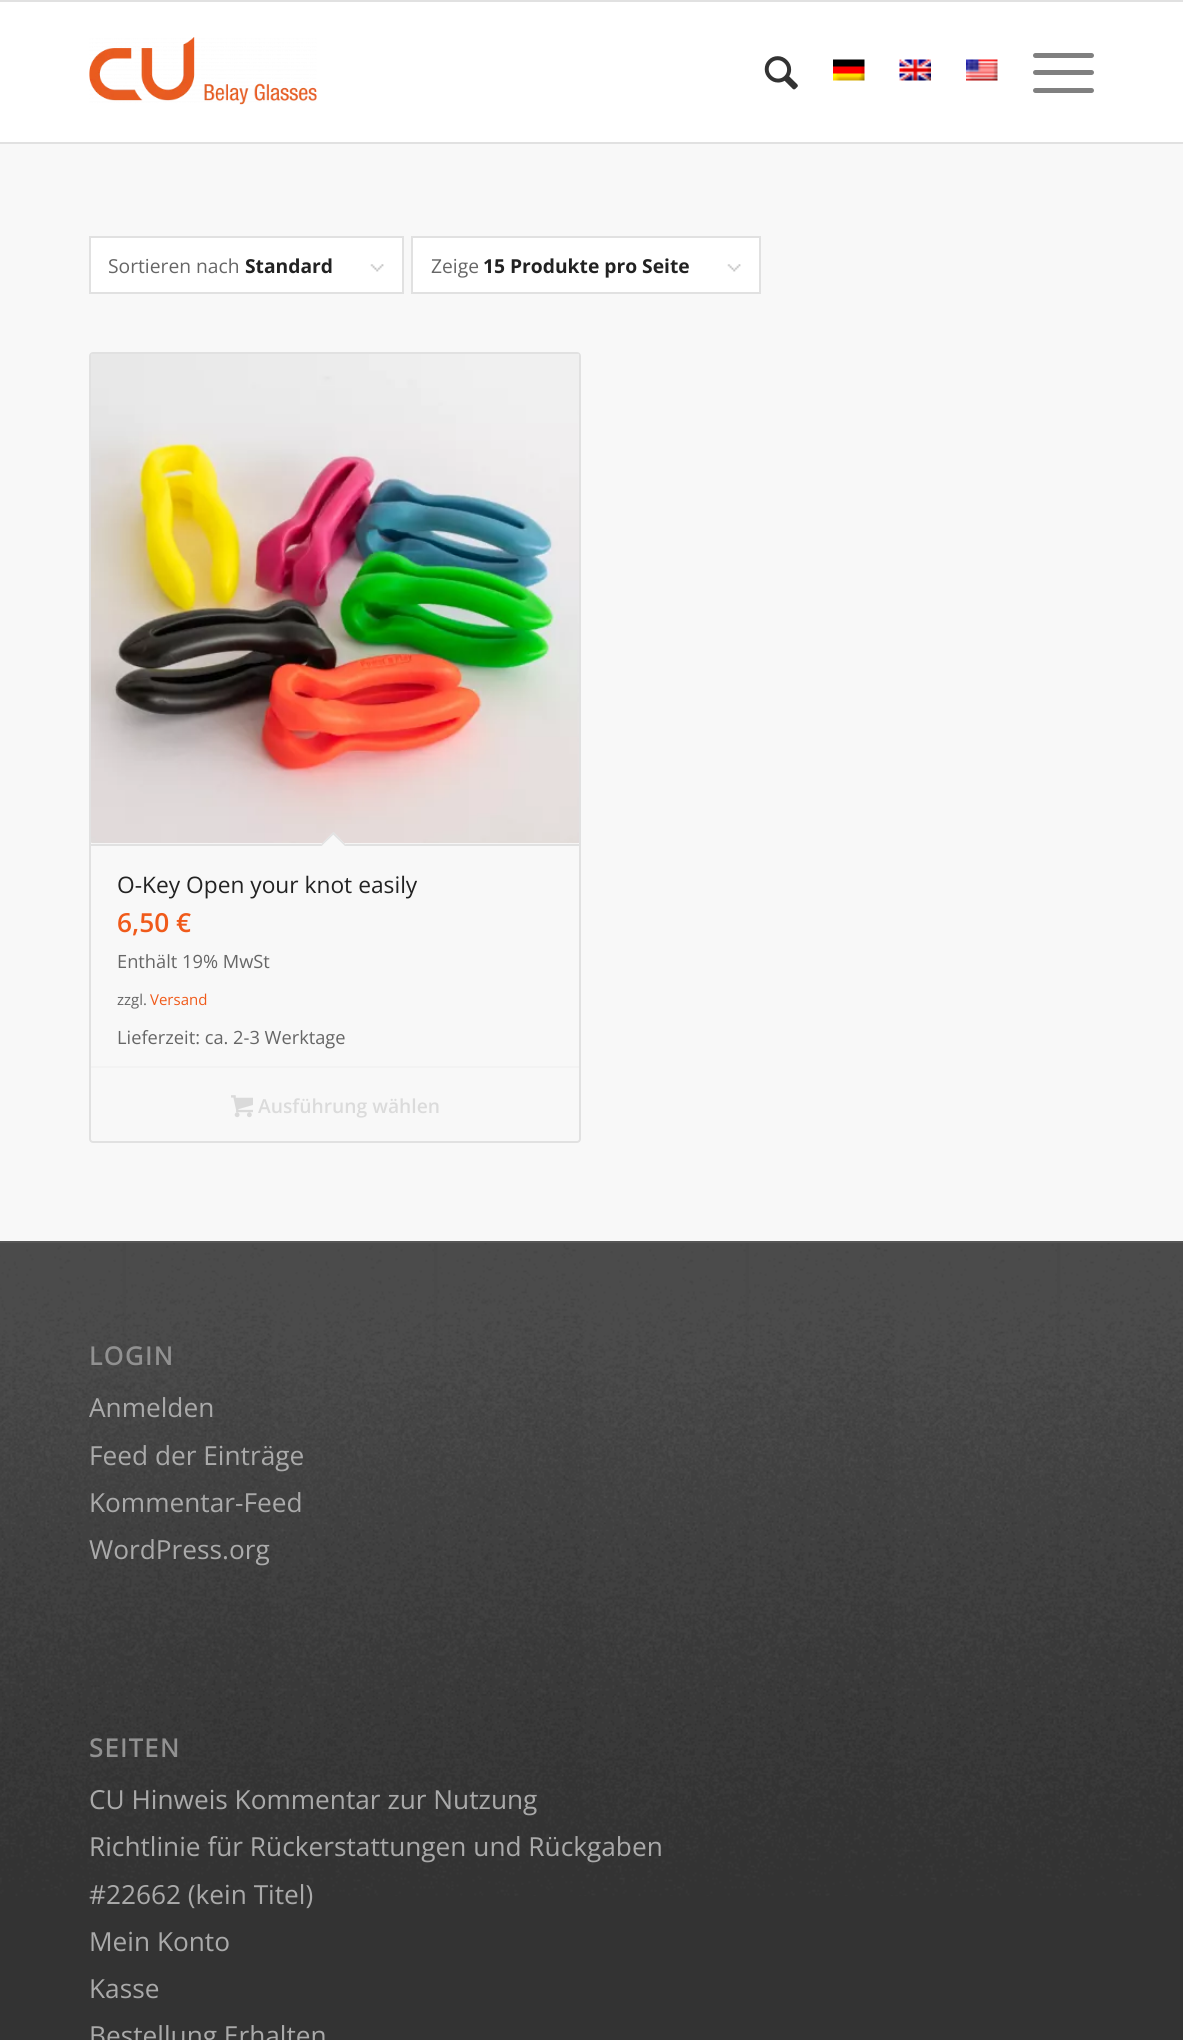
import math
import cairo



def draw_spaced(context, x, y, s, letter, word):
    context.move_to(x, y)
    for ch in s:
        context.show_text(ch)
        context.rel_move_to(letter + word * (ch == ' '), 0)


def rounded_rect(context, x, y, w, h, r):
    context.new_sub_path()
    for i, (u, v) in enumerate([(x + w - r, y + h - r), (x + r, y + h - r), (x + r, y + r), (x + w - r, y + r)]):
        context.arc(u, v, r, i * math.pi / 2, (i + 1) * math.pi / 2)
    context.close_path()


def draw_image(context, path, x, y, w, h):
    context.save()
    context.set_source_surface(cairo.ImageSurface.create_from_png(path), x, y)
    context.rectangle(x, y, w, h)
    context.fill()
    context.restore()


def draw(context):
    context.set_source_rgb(248 / 255, 248 / 255, 248 / 255)
    context.paint()
    context.set_source_rgb(225 / 255, 225 / 255, 225 / 255)
    context.rectangle(0, 0, 1183, 2)
    context.fill()
    context.rectangle(0, 142, 1183, 2)
    context.fill()
    context.set_source_rgb(1, 1, 1)
    context.rectangle(0, 2, 1183, 140)
    context.fill()
    draw_image(context, "images/1.png", 89, 37, 228, 68)
    draw_image(context, "images/2.png", 764, 56, 34, 34)
    draw_image(context, "images/3.png", 833, 59, 32, 22)
    draw_image(context, "images/4.png", 899, 59, 32, 22)
    draw_image(context, "images/5.png", 966, 59, 32, 22)
    context.set_source_rgb(128 / 255, 128 / 255, 128 / 255)
    rounded_rect(context, 1033, 70, 61, 5, 2.5)
    context.fill()
    rounded_rect(context, 1033, 53, 61, 5, 2.5)
    context.fill()
    rounded_rect(context, 1033, 88, 61, 5, 2.5)
    context.fill()
    context.set_source_rgb(1, 1, 1)
    context.rectangle(91, 238, 311, 54)
    context.fill()
    draw_image(context, "images/6.png", 370, 264, 14, 8)
    context.rectangle(90, 237, 313, 56)
    context.set_source_rgb(225 / 255, 225 / 255, 225 / 255)
    context.stroke()
    context.set_source_rgb(1, 1, 1)
    context.rectangle(413, 238, 346, 54)
    context.fill()
    draw_image(context, "images/7.png", 727, 264, 14, 8)
    context.rectangle(412, 237, 348, 56)
    context.set_source_rgb(225 / 255, 225 / 255, 225 / 255)
    context.stroke()
    rounded_rect(context, 90, 353, 490, 789, 3)
    context.stroke()
    draw_image(context, "images/8.png", 91, 354, 488, 490)
    context.rectangle(91, 844, 488, 2)
    context.fill()
    context.set_source_rgb(248 / 255, 248 / 255, 248 / 255)
    context.new_path()
    context.move_to(333.5, 832)
    context.line_to(345.5, 844.5)
    context.line_to(333.5, 857)
    context.line_to(321, 844.5)
    context.close_path()
    context.fill()
    context.set_source_rgb(225 / 255, 225 / 255, 225 / 255)
    context.new_path()
    context.move_to(333.5, 832)
    context.line_to(345.5, 844.5)
    context.line_to(344.5, 845.5)
    context.line_to(332, 833.5)
    context.close_path()
    context.fill()
    context.new_path()
    context.move_to(333.5, 832)
    context.line_to(334.5, 833.5)
    context.line_to(322, 845.5)
    context.line_to(321, 844.5)
    context.close_path()
    context.fill()
    context.set_source_rgb(243 / 255, 243 / 255, 243 / 255)
    context.rectangle(91, 1066, 488, 2)
    context.fill()
    draw_image(context, "images/9.png", 231, 1095, 22, 23)
    context.set_source_rgb(51 / 255, 51 / 255, 51 / 255)
    context.rectangle(0, 1243, 1183, 797)
    context.fill()
    draw_image(context, "images/10.png", 0, 1243, 1183, 653)
    context.set_source_rgb(85 / 255, 85 / 255, 85 / 255)
    context.rectangle(0, 1241, 1183, 2)
    context.fill()
    context.select_font_face("Open Sans")
    context.set_font_size(19.25)
    context.set_source_rgb(102 / 255, 102 / 255, 102 / 255)
    context.move_to(108, 273)
    context.show_text("Sortieren nach")
    context.select_font_face("Open Sans", cairo.FontSlant.NORMAL, cairo.FontWeight.BOLD)
    context.set_source_rgb(34 / 255, 34 / 255, 34 / 255)
    context.move_to(245, 273)
    context.show_text("Standard")
    context.select_font_face("Open Sans")
    context.set_source_rgb(102 / 255, 102 / 255, 102 / 255)
    context.move_to(431, 273)
    context.show_text("Zeige")
    context.select_font_face("Open Sans", cairo.FontSlant.NORMAL, cairo.FontWeight.BOLD)
    context.set_source_rgb(34 / 255, 34 / 255, 34 / 255)
    context.move_to(483, 273)
    context.show_text("15 Produkte pro Seite")
    context.select_font_face("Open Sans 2")
    context.set_font_size(22.75)
    context.move_to(117, 893)
    context.show_text("O-Key Open your knot easily")
    context.select_font_face("Open Sans SemiBold")
    context.set_font_size(26.25)
    context.set_source_rgb(240 / 255, 90 / 255, 26 / 255)
    context.move_to(117, 932)
    context.show_text("6,50 €")
    context.select_font_face("Open Sans")
    context.set_font_size(18.25)
    context.set_source_rgb(102 / 255, 102 / 255, 102 / 255)
    context.move_to(117, 968)
    context.show_text("Enthält 19% MwSt")
    context.set_font_size(15)
    context.move_to(117, 1005)
    context.show_text("zzgl.")
    context.set_source_rgb(240 / 255, 90 / 255, 26 / 255)
    context.move_to(150, 1005)
    context.show_text("Versand")
    context.set_font_size(18.25)
    context.set_source_rgb(102 / 255, 102 / 255, 102 / 255)
    context.move_to(117, 1044)
    context.show_text("Lieferzeit: ca. 2-3 Werktage")
    context.select_font_face("Open Sans SemiBold")
    context.set_font_size(19.25)
    context.set_source_rgb(219 / 255, 219 / 255, 219 / 255)
    context.move_to(258, 1113)
    context.show_text("Ausführung wählen")
    context.select_font_face("Open Sans 2", cairo.FontSlant.NORMAL, cairo.FontWeight.BOLD)
    context.set_font_size(25)
    context.set_source_rgb(145 / 255, 145 / 255, 145 / 255)
    draw_spaced(context, 89, 1365, "LOGIN", 1.75, 0)
    context.select_font_face("Open Sans 2")
    context.set_font_size(26.25)
    context.set_source_rgb(170 / 255, 170 / 255, 170 / 255)
    context.move_to(89, 1417)
    context.show_text("Anmelden")
    context.move_to(89, 1465)
    context.show_text("Feed der Einträge")
    context.move_to(89, 1512)
    context.show_text("Kommentar-Feed")
    context.move_to(89, 1559)
    context.show_text("WordPress.org")
    context.select_font_face("Open Sans 2", cairo.FontSlant.NORMAL, cairo.FontWeight.BOLD)
    context.set_font_size(25)
    context.set_source_rgb(145 / 255, 145 / 255, 145 / 255)
    draw_spaced(context, 89, 1757, "SEITEN", 1.75, 0)
    context.select_font_face("Open Sans 2")
    context.set_font_size(26.25)
    context.set_source_rgb(170 / 255, 170 / 255, 170 / 255)
    context.move_to(89, 1809)
    context.show_text("CU Hinweis Kommentar zur Nutzung")
    context.move_to(89, 1856)
    context.show_text("Richtlinie für Rückerstattungen und Rückgaben")
    context.move_to(89, 1904)
    context.show_text("#22662 (kein Titel)")
    context.move_to(89, 1951)
    context.show_text("Mein Konto")
    context.move_to(89, 1998)
    context.show_text("Kasse")
    context.move_to(89, 2045)
    context.show_text("Bestellung Erhalten")


surface = cairo.ImageSurface(cairo.Format.RGB24, 1183, 2040)
context = cairo.Context(surface)
options = cairo.FontOptions()
options.set_hint_metrics(cairo.HintMetrics.OFF)
options.set_hint_style(cairo.HintStyle.NONE)
context.set_font_options(options)
context.set_miter_limit(4)
draw(context)
surface.write_to_png("out.png")
